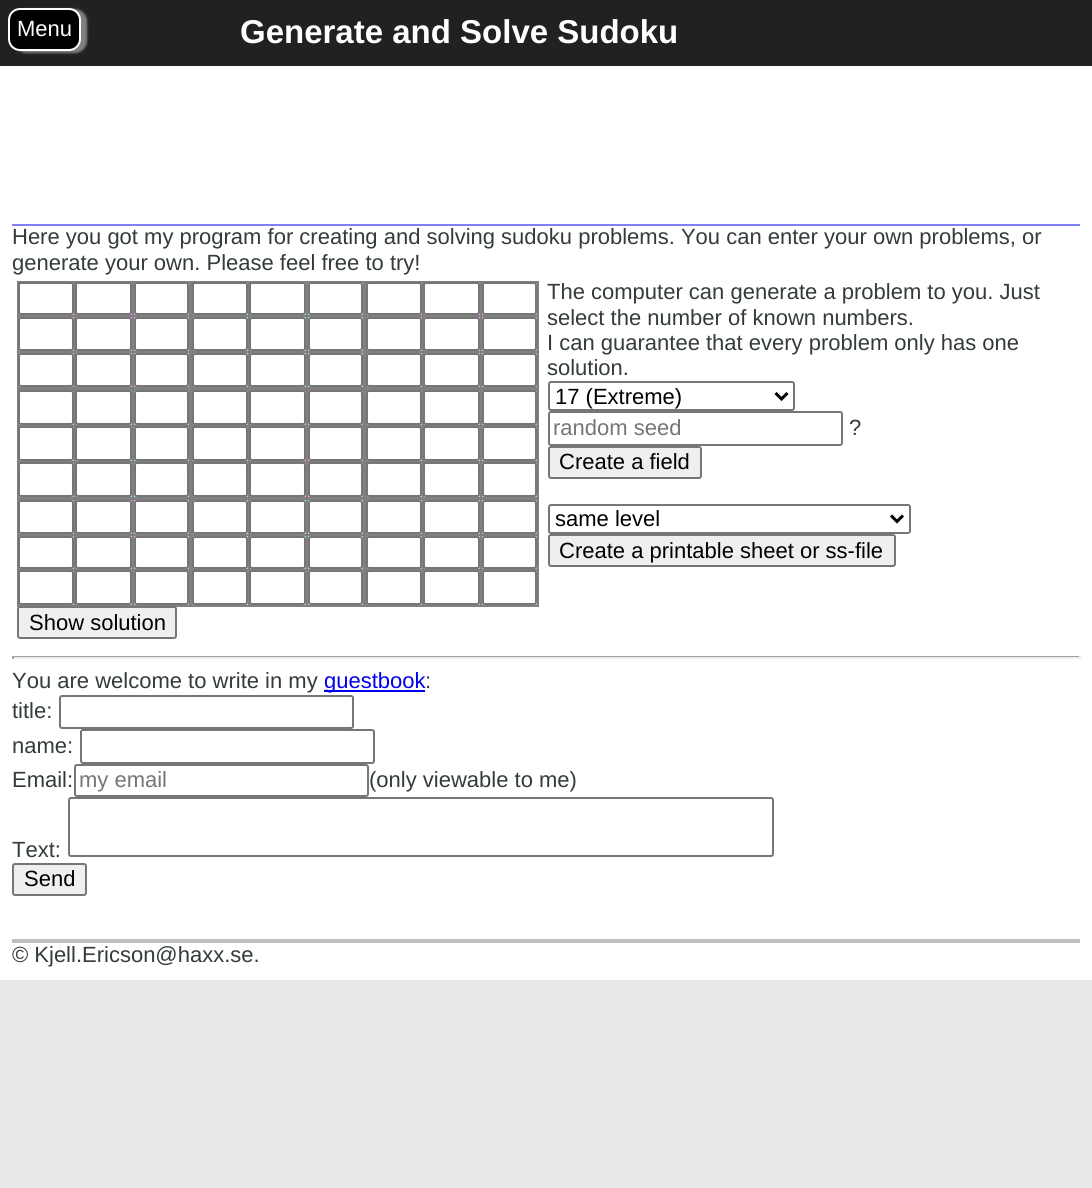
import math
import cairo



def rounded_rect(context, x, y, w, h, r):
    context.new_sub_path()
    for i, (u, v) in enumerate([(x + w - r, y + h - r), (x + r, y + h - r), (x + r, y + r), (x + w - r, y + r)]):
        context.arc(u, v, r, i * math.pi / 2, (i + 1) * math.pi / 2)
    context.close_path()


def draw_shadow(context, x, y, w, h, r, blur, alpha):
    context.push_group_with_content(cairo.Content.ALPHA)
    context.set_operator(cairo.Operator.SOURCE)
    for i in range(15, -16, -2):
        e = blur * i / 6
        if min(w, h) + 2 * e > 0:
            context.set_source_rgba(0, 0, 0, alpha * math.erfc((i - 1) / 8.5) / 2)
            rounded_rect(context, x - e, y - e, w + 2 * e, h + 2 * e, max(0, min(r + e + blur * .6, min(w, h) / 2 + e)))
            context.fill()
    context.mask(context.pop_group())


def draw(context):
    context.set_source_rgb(232 / 255, 232 / 255, 232 / 255)
    context.paint()
    context.set_source_rgb(1, 1, 1)
    context.rectangle(0, 66, 1092, 914)
    context.fill()
    context.set_source_rgb(33 / 255, 33 / 255, 33 / 255)
    context.rectangle(0, 0, 1092, 66)
    context.fill()
    context.set_source_rgb(128 / 255, 128 / 255, 1)
    context.rectangle(12, 224, 1068, 2)
    context.fill()
    rounded_rect(context, 549, 382, 245, 28, 2)
    context.set_source_rgb(118 / 255, 118 / 255, 118 / 255)
    context.stroke()
    context.new_path()
    context.move_to(775.5, 393)
    context.line_to(781.5, 399)
    context.line_to(787.5, 393)
    context.set_source_rgb(0, 0, 0)
    context.set_line_width(3)
    context.stroke()
    rounded_rect(context, 549, 412, 293, 33, 2)
    context.set_source_rgb(118 / 255, 118 / 255, 118 / 255)
    context.set_line_width(2)
    context.stroke()
    context.set_source_rgb(239 / 255, 239 / 255, 239 / 255)
    rounded_rect(context, 549, 447, 152, 31, 2)
    context.fill_preserve()
    context.set_source_rgb(118 / 255, 118 / 255, 118 / 255)
    context.stroke()
    rounded_rect(context, 549, 505, 361, 28, 2)
    context.stroke()
    context.new_path()
    context.move_to(891, 515.5)
    context.line_to(897, 521.5)
    context.line_to(903, 515.5)
    context.set_source_rgb(0, 0, 0)
    context.set_line_width(3)
    context.stroke()
    context.set_source_rgb(239 / 255, 239 / 255, 239 / 255)
    rounded_rect(context, 549, 535, 346, 31, 2)
    context.fill_preserve()
    context.set_source_rgb(118 / 255, 118 / 255, 118 / 255)
    context.set_line_width(2)
    context.stroke()
    context.set_source_rgb(128 / 255, 128 / 255, 128 / 255)
    context.rectangle(17, 281, 522, 2)
    context.fill()
    context.rectangle(189, 281, 2, 108)
    context.fill()
    context.rectangle(17, 387, 174, 4)
    context.fill()
    context.rectangle(17, 281, 2, 108)
    context.fill()
    context.set_source_rgb(240 / 255, 160 / 255, 240 / 255)
    context.rectangle(19, 283, 55, 32)
    context.fill()
    context.set_source_rgb(1, 1, 1)
    rounded_rect(context, 19, 283, 54, 31, 2)
    context.fill_preserve()
    context.set_source_rgb(118 / 255, 118 / 255, 118 / 255)
    context.stroke()
    context.set_source_rgb(240 / 255, 160 / 255, 240 / 255)
    context.rectangle(76, 283, 56, 32)
    context.fill()
    context.set_source_rgb(128 / 255, 128 / 255, 128 / 255)
    context.rectangle(132, 315, 59, 2)
    context.fill()
    context.rectangle(132, 351, 59, 2)
    context.fill()
    context.rectangle(132, 351, 2, 38)
    context.fill()
    context.rectangle(74, 351, 60, 2)
    context.fill()
    context.rectangle(132, 315, 2, 38)
    context.fill()
    context.rectangle(74, 315, 60, 2)
    context.fill()
    context.rectangle(74, 351, 2, 38)
    context.fill()
    context.rectangle(17, 351, 58, 2)
    context.fill()
    context.rectangle(74, 315, 2, 38)
    context.fill()
    context.rectangle(17, 315, 58, 2)
    context.fill()
    context.rectangle(74, 281, 2, 36)
    context.fill()
    context.set_source_rgb(1, 1, 1)
    rounded_rect(context, 76, 283, 55, 31, 2)
    context.fill_preserve()
    context.set_source_rgb(118 / 255, 118 / 255, 118 / 255)
    context.stroke()
    context.set_source_rgb(240 / 255, 160 / 255, 240 / 255)
    context.rectangle(134, 283, 55, 32)
    context.fill()
    context.set_source_rgb(128 / 255, 128 / 255, 128 / 255)
    context.rectangle(132, 281, 2, 36)
    context.fill()
    context.set_source_rgb(1, 1, 1)
    rounded_rect(context, 135, 283, 53, 31, 2)
    context.fill_preserve()
    context.set_source_rgb(118 / 255, 118 / 255, 118 / 255)
    context.stroke()
    context.set_source_rgb(240 / 255, 160 / 255, 240 / 255)
    context.rectangle(19, 317, 55, 34)
    context.fill()
    context.set_source_rgb(1, 1, 1)
    rounded_rect(context, 19, 318, 54, 32, 2)
    context.fill_preserve()
    context.set_source_rgb(118 / 255, 118 / 255, 118 / 255)
    context.stroke()
    context.set_source_rgb(240 / 255, 160 / 255, 240 / 255)
    context.rectangle(76, 317, 56, 34)
    context.fill()
    context.set_source_rgb(1, 1, 1)
    rounded_rect(context, 76, 318, 55, 32, 2)
    context.fill_preserve()
    context.set_source_rgb(118 / 255, 118 / 255, 118 / 255)
    context.stroke()
    context.set_source_rgb(240 / 255, 160 / 255, 240 / 255)
    context.rectangle(134, 317, 55, 34)
    context.fill()
    context.set_source_rgb(1, 1, 1)
    rounded_rect(context, 135, 318, 53, 32, 2)
    context.fill_preserve()
    context.set_source_rgb(118 / 255, 118 / 255, 118 / 255)
    context.stroke()
    context.set_source_rgb(240 / 255, 160 / 255, 240 / 255)
    context.rectangle(19, 353, 55, 34)
    context.fill()
    context.set_source_rgb(1, 1, 1)
    rounded_rect(context, 19, 354, 54, 32, 2)
    context.fill_preserve()
    context.set_source_rgb(118 / 255, 118 / 255, 118 / 255)
    context.stroke()
    context.set_source_rgb(240 / 255, 160 / 255, 240 / 255)
    context.rectangle(76, 353, 56, 34)
    context.fill()
    context.set_source_rgb(1, 1, 1)
    rounded_rect(context, 76, 354, 55, 32, 2)
    context.fill_preserve()
    context.set_source_rgb(118 / 255, 118 / 255, 118 / 255)
    context.stroke()
    context.set_source_rgb(240 / 255, 160 / 255, 240 / 255)
    context.rectangle(134, 353, 55, 34)
    context.fill()
    context.set_source_rgb(1, 1, 1)
    rounded_rect(context, 135, 354, 53, 32, 2)
    context.fill_preserve()
    context.set_source_rgb(118 / 255, 118 / 255, 118 / 255)
    context.stroke()
    context.set_source_rgb(128 / 255, 128 / 255, 128 / 255)
    context.rectangle(363, 281, 2, 108)
    context.fill()
    context.rectangle(191, 387, 174, 4)
    context.fill()
    context.rectangle(191, 281, 2, 108)
    context.fill()
    context.set_source_rgb(160 / 255, 224 / 255, 224 / 255)
    context.rectangle(193, 283, 55, 32)
    context.fill()
    context.set_source_rgb(1, 1, 1)
    rounded_rect(context, 193, 283, 54, 31, 2)
    context.fill_preserve()
    context.set_source_rgb(118 / 255, 118 / 255, 118 / 255)
    context.stroke()
    context.set_source_rgb(160 / 255, 224 / 255, 224 / 255)
    context.rectangle(250, 283, 56, 32)
    context.fill()
    context.set_source_rgb(128 / 255, 128 / 255, 128 / 255)
    context.rectangle(306, 315, 59, 2)
    context.fill()
    context.rectangle(306, 351, 59, 2)
    context.fill()
    context.rectangle(306, 351, 2, 38)
    context.fill()
    context.rectangle(248, 351, 60, 2)
    context.fill()
    context.rectangle(306, 315, 2, 38)
    context.fill()
    context.rectangle(248, 315, 60, 2)
    context.fill()
    context.rectangle(248, 351, 2, 38)
    context.fill()
    context.rectangle(191, 351, 58, 2)
    context.fill()
    context.rectangle(248, 315, 2, 38)
    context.fill()
    context.rectangle(191, 315, 58, 2)
    context.fill()
    context.rectangle(248, 281, 2, 36)
    context.fill()
    context.set_source_rgb(1, 1, 1)
    rounded_rect(context, 250, 283, 55, 31, 2)
    context.fill_preserve()
    context.set_source_rgb(118 / 255, 118 / 255, 118 / 255)
    context.stroke()
    context.set_source_rgb(160 / 255, 224 / 255, 224 / 255)
    context.rectangle(308, 283, 55, 32)
    context.fill()
    context.set_source_rgb(128 / 255, 128 / 255, 128 / 255)
    context.rectangle(306, 281, 2, 36)
    context.fill()
    context.set_source_rgb(1, 1, 1)
    rounded_rect(context, 309, 283, 53, 31, 2)
    context.fill_preserve()
    context.set_source_rgb(118 / 255, 118 / 255, 118 / 255)
    context.stroke()
    context.set_source_rgb(160 / 255, 224 / 255, 224 / 255)
    context.rectangle(193, 317, 55, 34)
    context.fill()
    context.set_source_rgb(1, 1, 1)
    rounded_rect(context, 193, 318, 54, 32, 2)
    context.fill_preserve()
    context.set_source_rgb(118 / 255, 118 / 255, 118 / 255)
    context.stroke()
    context.set_source_rgb(160 / 255, 224 / 255, 224 / 255)
    context.rectangle(250, 317, 56, 34)
    context.fill()
    context.set_source_rgb(1, 1, 1)
    rounded_rect(context, 250, 318, 55, 32, 2)
    context.fill_preserve()
    context.set_source_rgb(118 / 255, 118 / 255, 118 / 255)
    context.stroke()
    context.set_source_rgb(160 / 255, 224 / 255, 224 / 255)
    context.rectangle(308, 317, 55, 34)
    context.fill()
    context.set_source_rgb(1, 1, 1)
    rounded_rect(context, 309, 318, 53, 32, 2)
    context.fill_preserve()
    context.set_source_rgb(118 / 255, 118 / 255, 118 / 255)
    context.stroke()
    context.set_source_rgb(160 / 255, 224 / 255, 224 / 255)
    context.rectangle(193, 353, 55, 34)
    context.fill()
    context.set_source_rgb(1, 1, 1)
    rounded_rect(context, 193, 354, 54, 32, 2)
    context.fill_preserve()
    context.set_source_rgb(118 / 255, 118 / 255, 118 / 255)
    context.stroke()
    context.set_source_rgb(160 / 255, 224 / 255, 224 / 255)
    context.rectangle(250, 353, 56, 34)
    context.fill()
    context.set_source_rgb(1, 1, 1)
    rounded_rect(context, 250, 354, 55, 32, 2)
    context.fill_preserve()
    context.set_source_rgb(118 / 255, 118 / 255, 118 / 255)
    context.stroke()
    context.set_source_rgb(160 / 255, 224 / 255, 224 / 255)
    context.rectangle(308, 353, 55, 34)
    context.fill()
    context.set_source_rgb(1, 1, 1)
    rounded_rect(context, 309, 354, 53, 32, 2)
    context.fill_preserve()
    context.set_source_rgb(118 / 255, 118 / 255, 118 / 255)
    context.stroke()
    context.set_source_rgb(128 / 255, 128 / 255, 128 / 255)
    context.rectangle(537, 281, 2, 108)
    context.fill()
    context.rectangle(365, 387, 174, 4)
    context.fill()
    context.rectangle(365, 281, 2, 108)
    context.fill()
    context.set_source_rgb(240 / 255, 160 / 255, 240 / 255)
    context.rectangle(367, 283, 55, 32)
    context.fill()
    context.set_source_rgb(1, 1, 1)
    rounded_rect(context, 367, 283, 54, 31, 2)
    context.fill_preserve()
    context.set_source_rgb(118 / 255, 118 / 255, 118 / 255)
    context.stroke()
    context.set_source_rgb(240 / 255, 160 / 255, 240 / 255)
    context.rectangle(424, 283, 56, 32)
    context.fill()
    context.set_source_rgb(128 / 255, 128 / 255, 128 / 255)
    context.rectangle(480, 315, 59, 2)
    context.fill()
    context.rectangle(480, 351, 59, 2)
    context.fill()
    context.rectangle(480, 351, 2, 38)
    context.fill()
    context.rectangle(422, 351, 60, 2)
    context.fill()
    context.rectangle(480, 315, 2, 38)
    context.fill()
    context.rectangle(422, 315, 60, 2)
    context.fill()
    context.rectangle(422, 351, 2, 38)
    context.fill()
    context.rectangle(365, 351, 58, 2)
    context.fill()
    context.rectangle(422, 315, 2, 38)
    context.fill()
    context.rectangle(365, 315, 58, 2)
    context.fill()
    context.rectangle(422, 281, 2, 36)
    context.fill()
    context.set_source_rgb(1, 1, 1)
    rounded_rect(context, 424, 283, 55, 31, 2)
    context.fill_preserve()
    context.set_source_rgb(118 / 255, 118 / 255, 118 / 255)
    context.stroke()
    context.set_source_rgb(240 / 255, 160 / 255, 240 / 255)
    context.rectangle(482, 283, 55, 32)
    context.fill()
    context.set_source_rgb(128 / 255, 128 / 255, 128 / 255)
    context.rectangle(480, 281, 2, 36)
    context.fill()
    context.set_source_rgb(1, 1, 1)
    rounded_rect(context, 483, 283, 53, 31, 2)
    context.fill_preserve()
    context.set_source_rgb(118 / 255, 118 / 255, 118 / 255)
    context.stroke()
    context.set_source_rgb(240 / 255, 160 / 255, 240 / 255)
    context.rectangle(367, 317, 55, 34)
    context.fill()
    context.set_source_rgb(1, 1, 1)
    rounded_rect(context, 367, 318, 54, 32, 2)
    context.fill_preserve()
    context.set_source_rgb(118 / 255, 118 / 255, 118 / 255)
    context.stroke()
    context.set_source_rgb(240 / 255, 160 / 255, 240 / 255)
    context.rectangle(424, 317, 56, 34)
    context.fill()
    context.set_source_rgb(1, 1, 1)
    rounded_rect(context, 424, 318, 55, 32, 2)
    context.fill_preserve()
    context.set_source_rgb(118 / 255, 118 / 255, 118 / 255)
    context.stroke()
    context.set_source_rgb(240 / 255, 160 / 255, 240 / 255)
    context.rectangle(482, 317, 55, 34)
    context.fill()
    context.set_source_rgb(1, 1, 1)
    rounded_rect(context, 483, 318, 53, 32, 2)
    context.fill_preserve()
    context.set_source_rgb(118 / 255, 118 / 255, 118 / 255)
    context.stroke()
    context.set_source_rgb(240 / 255, 160 / 255, 240 / 255)
    context.rectangle(367, 353, 55, 34)
    context.fill()
    context.set_source_rgb(1, 1, 1)
    rounded_rect(context, 367, 354, 54, 32, 2)
    context.fill_preserve()
    context.set_source_rgb(118 / 255, 118 / 255, 118 / 255)
    context.stroke()
    context.set_source_rgb(240 / 255, 160 / 255, 240 / 255)
    context.rectangle(424, 353, 56, 34)
    context.fill()
    context.set_source_rgb(1, 1, 1)
    rounded_rect(context, 424, 354, 55, 32, 2)
    context.fill_preserve()
    context.set_source_rgb(118 / 255, 118 / 255, 118 / 255)
    context.stroke()
    context.set_source_rgb(240 / 255, 160 / 255, 240 / 255)
    context.rectangle(482, 353, 55, 34)
    context.fill()
    context.set_source_rgb(1, 1, 1)
    rounded_rect(context, 483, 354, 53, 32, 2)
    context.fill_preserve()
    context.set_source_rgb(118 / 255, 118 / 255, 118 / 255)
    context.stroke()
    context.set_source_rgb(128 / 255, 128 / 255, 128 / 255)
    context.rectangle(189, 389, 2, 109)
    context.fill()
    context.rectangle(17, 497, 174, 3)
    context.fill()
    context.rectangle(17, 389, 2, 109)
    context.fill()
    context.set_source_rgb(160 / 255, 224 / 255, 224 / 255)
    context.rectangle(19, 391, 55, 34)
    context.fill()
    context.set_source_rgb(1, 1, 1)
    rounded_rect(context, 19, 391, 54, 33, 2)
    context.fill_preserve()
    context.set_source_rgb(118 / 255, 118 / 255, 118 / 255)
    context.stroke()
    context.set_source_rgb(160 / 255, 224 / 255, 224 / 255)
    context.rectangle(76, 391, 56, 34)
    context.fill()
    context.set_source_rgb(128 / 255, 128 / 255, 128 / 255)
    context.rectangle(132, 425, 59, 2)
    context.fill()
    context.rectangle(132, 461, 59, 2)
    context.fill()
    context.rectangle(132, 461, 2, 37)
    context.fill()
    context.rectangle(74, 461, 60, 2)
    context.fill()
    context.rectangle(132, 425, 2, 37)
    context.fill()
    context.rectangle(74, 425, 60, 2)
    context.fill()
    context.rectangle(74, 461, 2, 37)
    context.fill()
    context.rectangle(17, 461, 58, 2)
    context.fill()
    context.rectangle(74, 425, 2, 37)
    context.fill()
    context.rectangle(17, 425, 58, 2)
    context.fill()
    context.rectangle(74, 389, 2, 37)
    context.fill()
    context.set_source_rgb(1, 1, 1)
    rounded_rect(context, 76, 391, 55, 33, 2)
    context.fill_preserve()
    context.set_source_rgb(118 / 255, 118 / 255, 118 / 255)
    context.stroke()
    context.set_source_rgb(160 / 255, 224 / 255, 224 / 255)
    context.rectangle(134, 391, 55, 34)
    context.fill()
    context.set_source_rgb(128 / 255, 128 / 255, 128 / 255)
    context.rectangle(132, 389, 2, 37)
    context.fill()
    context.set_source_rgb(1, 1, 1)
    rounded_rect(context, 135, 391, 53, 33, 2)
    context.fill_preserve()
    context.set_source_rgb(118 / 255, 118 / 255, 118 / 255)
    context.stroke()
    context.set_source_rgb(160 / 255, 224 / 255, 224 / 255)
    context.rectangle(19, 427, 55, 34)
    context.fill()
    context.set_source_rgb(1, 1, 1)
    rounded_rect(context, 19, 427, 54, 33, 2)
    context.fill_preserve()
    context.set_source_rgb(118 / 255, 118 / 255, 118 / 255)
    context.stroke()
    context.set_source_rgb(160 / 255, 224 / 255, 224 / 255)
    context.rectangle(76, 427, 56, 34)
    context.fill()
    context.set_source_rgb(1, 1, 1)
    rounded_rect(context, 76, 427, 55, 33, 2)
    context.fill_preserve()
    context.set_source_rgb(118 / 255, 118 / 255, 118 / 255)
    context.stroke()
    context.set_source_rgb(160 / 255, 224 / 255, 224 / 255)
    context.rectangle(134, 427, 55, 34)
    context.fill()
    context.set_source_rgb(1, 1, 1)
    rounded_rect(context, 135, 427, 53, 33, 2)
    context.fill_preserve()
    context.set_source_rgb(118 / 255, 118 / 255, 118 / 255)
    context.stroke()
    context.set_source_rgb(160 / 255, 224 / 255, 224 / 255)
    context.rectangle(19, 463, 55, 34)
    context.fill()
    context.set_source_rgb(1, 1, 1)
    rounded_rect(context, 19, 463, 54, 33, 2)
    context.fill_preserve()
    context.set_source_rgb(118 / 255, 118 / 255, 118 / 255)
    context.stroke()
    context.set_source_rgb(160 / 255, 224 / 255, 224 / 255)
    context.rectangle(76, 463, 56, 34)
    context.fill()
    context.set_source_rgb(1, 1, 1)
    rounded_rect(context, 76, 463, 55, 33, 2)
    context.fill_preserve()
    context.set_source_rgb(118 / 255, 118 / 255, 118 / 255)
    context.stroke()
    context.set_source_rgb(160 / 255, 224 / 255, 224 / 255)
    context.rectangle(134, 463, 55, 34)
    context.fill()
    context.set_source_rgb(1, 1, 1)
    rounded_rect(context, 135, 463, 53, 33, 2)
    context.fill_preserve()
    context.set_source_rgb(118 / 255, 118 / 255, 118 / 255)
    context.stroke()
    context.set_source_rgb(128 / 255, 128 / 255, 128 / 255)
    context.rectangle(363, 389, 2, 109)
    context.fill()
    context.rectangle(191, 497, 174, 3)
    context.fill()
    context.rectangle(191, 389, 2, 109)
    context.fill()
    context.set_source_rgb(240 / 255, 160 / 255, 240 / 255)
    context.rectangle(193, 391, 55, 34)
    context.fill()
    context.set_source_rgb(1, 1, 1)
    rounded_rect(context, 193, 391, 54, 33, 2)
    context.fill_preserve()
    context.set_source_rgb(118 / 255, 118 / 255, 118 / 255)
    context.stroke()
    context.set_source_rgb(240 / 255, 160 / 255, 240 / 255)
    context.rectangle(250, 391, 56, 34)
    context.fill()
    context.set_source_rgb(128 / 255, 128 / 255, 128 / 255)
    context.rectangle(306, 425, 59, 2)
    context.fill()
    context.rectangle(306, 461, 59, 2)
    context.fill()
    context.rectangle(306, 461, 2, 37)
    context.fill()
    context.rectangle(248, 461, 60, 2)
    context.fill()
    context.rectangle(306, 425, 2, 37)
    context.fill()
    context.rectangle(248, 425, 60, 2)
    context.fill()
    context.rectangle(248, 461, 2, 37)
    context.fill()
    context.rectangle(191, 461, 58, 2)
    context.fill()
    context.rectangle(248, 425, 2, 37)
    context.fill()
    context.rectangle(191, 425, 58, 2)
    context.fill()
    context.rectangle(248, 389, 2, 37)
    context.fill()
    context.set_source_rgb(1, 1, 1)
    rounded_rect(context, 250, 391, 55, 33, 2)
    context.fill_preserve()
    context.set_source_rgb(118 / 255, 118 / 255, 118 / 255)
    context.stroke()
    context.set_source_rgb(240 / 255, 160 / 255, 240 / 255)
    context.rectangle(308, 391, 55, 34)
    context.fill()
    context.set_source_rgb(128 / 255, 128 / 255, 128 / 255)
    context.rectangle(306, 389, 2, 37)
    context.fill()
    context.set_source_rgb(1, 1, 1)
    rounded_rect(context, 309, 391, 53, 33, 2)
    context.fill_preserve()
    context.set_source_rgb(118 / 255, 118 / 255, 118 / 255)
    context.stroke()
    context.set_source_rgb(240 / 255, 160 / 255, 240 / 255)
    context.rectangle(193, 427, 55, 34)
    context.fill()
    context.set_source_rgb(1, 1, 1)
    rounded_rect(context, 193, 427, 54, 33, 2)
    context.fill_preserve()
    context.set_source_rgb(118 / 255, 118 / 255, 118 / 255)
    context.stroke()
    context.set_source_rgb(240 / 255, 160 / 255, 240 / 255)
    context.rectangle(250, 427, 56, 34)
    context.fill()
    context.set_source_rgb(1, 1, 1)
    rounded_rect(context, 250, 427, 55, 33, 2)
    context.fill_preserve()
    context.set_source_rgb(118 / 255, 118 / 255, 118 / 255)
    context.stroke()
    context.set_source_rgb(240 / 255, 160 / 255, 240 / 255)
    context.rectangle(308, 427, 55, 34)
    context.fill()
    context.set_source_rgb(1, 1, 1)
    rounded_rect(context, 309, 427, 53, 33, 2)
    context.fill_preserve()
    context.set_source_rgb(118 / 255, 118 / 255, 118 / 255)
    context.stroke()
    context.set_source_rgb(240 / 255, 160 / 255, 240 / 255)
    context.rectangle(193, 463, 55, 34)
    context.fill()
    context.set_source_rgb(1, 1, 1)
    rounded_rect(context, 193, 463, 54, 33, 2)
    context.fill_preserve()
    context.set_source_rgb(118 / 255, 118 / 255, 118 / 255)
    context.stroke()
    context.set_source_rgb(240 / 255, 160 / 255, 240 / 255)
    context.rectangle(250, 463, 56, 34)
    context.fill()
    context.set_source_rgb(1, 1, 1)
    rounded_rect(context, 250, 463, 55, 33, 2)
    context.fill_preserve()
    context.set_source_rgb(118 / 255, 118 / 255, 118 / 255)
    context.stroke()
    context.set_source_rgb(240 / 255, 160 / 255, 240 / 255)
    context.rectangle(308, 463, 55, 34)
    context.fill()
    context.set_source_rgb(1, 1, 1)
    rounded_rect(context, 309, 463, 53, 33, 2)
    context.fill_preserve()
    context.set_source_rgb(118 / 255, 118 / 255, 118 / 255)
    context.stroke()
    context.set_source_rgb(128 / 255, 128 / 255, 128 / 255)
    context.rectangle(537, 389, 2, 109)
    context.fill()
    context.rectangle(365, 497, 174, 3)
    context.fill()
    context.rectangle(365, 389, 2, 109)
    context.fill()
    context.set_source_rgb(160 / 255, 224 / 255, 224 / 255)
    context.rectangle(367, 391, 55, 34)
    context.fill()
    context.set_source_rgb(1, 1, 1)
    rounded_rect(context, 367, 391, 54, 33, 2)
    context.fill_preserve()
    context.set_source_rgb(118 / 255, 118 / 255, 118 / 255)
    context.stroke()
    context.set_source_rgb(160 / 255, 224 / 255, 224 / 255)
    context.rectangle(424, 391, 56, 34)
    context.fill()
    context.set_source_rgb(128 / 255, 128 / 255, 128 / 255)
    context.rectangle(480, 425, 59, 2)
    context.fill()
    context.rectangle(480, 461, 59, 2)
    context.fill()
    context.rectangle(480, 461, 2, 37)
    context.fill()
    context.rectangle(422, 461, 60, 2)
    context.fill()
    context.rectangle(480, 425, 2, 37)
    context.fill()
    context.rectangle(422, 425, 60, 2)
    context.fill()
    context.rectangle(422, 461, 2, 37)
    context.fill()
    context.rectangle(365, 461, 58, 2)
    context.fill()
    context.rectangle(422, 425, 2, 37)
    context.fill()
    context.rectangle(365, 425, 58, 2)
    context.fill()
    context.rectangle(422, 389, 2, 37)
    context.fill()
    context.set_source_rgb(1, 1, 1)
    rounded_rect(context, 424, 391, 55, 33, 2)
    context.fill_preserve()
    context.set_source_rgb(118 / 255, 118 / 255, 118 / 255)
    context.stroke()
    context.set_source_rgb(160 / 255, 224 / 255, 224 / 255)
    context.rectangle(482, 391, 55, 34)
    context.fill()
    context.set_source_rgb(128 / 255, 128 / 255, 128 / 255)
    context.rectangle(480, 389, 2, 37)
    context.fill()
    context.set_source_rgb(1, 1, 1)
    rounded_rect(context, 483, 391, 53, 33, 2)
    context.fill_preserve()
    context.set_source_rgb(118 / 255, 118 / 255, 118 / 255)
    context.stroke()
    context.set_source_rgb(160 / 255, 224 / 255, 224 / 255)
    context.rectangle(367, 427, 55, 34)
    context.fill()
    context.set_source_rgb(1, 1, 1)
    rounded_rect(context, 367, 427, 54, 33, 2)
    context.fill_preserve()
    context.set_source_rgb(118 / 255, 118 / 255, 118 / 255)
    context.stroke()
    context.set_source_rgb(160 / 255, 224 / 255, 224 / 255)
    context.rectangle(424, 427, 56, 34)
    context.fill()
    context.set_source_rgb(1, 1, 1)
    rounded_rect(context, 424, 427, 55, 33, 2)
    context.fill_preserve()
    context.set_source_rgb(118 / 255, 118 / 255, 118 / 255)
    context.stroke()
    context.set_source_rgb(160 / 255, 224 / 255, 224 / 255)
    context.rectangle(482, 427, 55, 34)
    context.fill()
    context.set_source_rgb(1, 1, 1)
    rounded_rect(context, 483, 427, 53, 33, 2)
    context.fill_preserve()
    context.set_source_rgb(118 / 255, 118 / 255, 118 / 255)
    context.stroke()
    context.set_source_rgb(160 / 255, 224 / 255, 224 / 255)
    context.rectangle(367, 463, 55, 34)
    context.fill()
    context.set_source_rgb(1, 1, 1)
    rounded_rect(context, 367, 463, 54, 33, 2)
    context.fill_preserve()
    context.set_source_rgb(118 / 255, 118 / 255, 118 / 255)
    context.stroke()
    context.set_source_rgb(160 / 255, 224 / 255, 224 / 255)
    context.rectangle(424, 463, 56, 34)
    context.fill()
    context.set_source_rgb(1, 1, 1)
    rounded_rect(context, 424, 463, 55, 33, 2)
    context.fill_preserve()
    context.set_source_rgb(118 / 255, 118 / 255, 118 / 255)
    context.stroke()
    context.set_source_rgb(160 / 255, 224 / 255, 224 / 255)
    context.rectangle(482, 463, 55, 34)
    context.fill()
    context.set_source_rgb(1, 1, 1)
    rounded_rect(context, 483, 463, 53, 33, 2)
    context.fill_preserve()
    context.set_source_rgb(118 / 255, 118 / 255, 118 / 255)
    context.stroke()
    context.set_source_rgb(128 / 255, 128 / 255, 128 / 255)
    context.rectangle(189, 498, 2, 108)
    context.fill()
    context.rectangle(17, 605, 174, 2)
    context.fill()
    context.rectangle(17, 498, 2, 108)
    context.fill()
    context.set_source_rgb(240 / 255, 160 / 255, 240 / 255)
    context.rectangle(19, 500, 55, 34)
    context.fill()
    context.set_source_rgb(1, 1, 1)
    rounded_rect(context, 19, 501, 54, 32, 2)
    context.fill_preserve()
    context.set_source_rgb(118 / 255, 118 / 255, 118 / 255)
    context.stroke()
    context.set_source_rgb(240 / 255, 160 / 255, 240 / 255)
    context.rectangle(76, 500, 56, 34)
    context.fill()
    context.set_source_rgb(128 / 255, 128 / 255, 128 / 255)
    context.rectangle(132, 534, 59, 2)
    context.fill()
    context.rectangle(132, 569, 59, 2)
    context.fill()
    context.rectangle(132, 569, 2, 37)
    context.fill()
    context.rectangle(74, 569, 60, 2)
    context.fill()
    context.rectangle(132, 534, 2, 36)
    context.fill()
    context.rectangle(74, 534, 60, 2)
    context.fill()
    context.rectangle(74, 569, 2, 37)
    context.fill()
    context.rectangle(17, 569, 58, 2)
    context.fill()
    context.rectangle(74, 534, 2, 36)
    context.fill()
    context.rectangle(17, 534, 58, 2)
    context.fill()
    context.rectangle(74, 498, 2, 38)
    context.fill()
    context.set_source_rgb(1, 1, 1)
    rounded_rect(context, 76, 501, 55, 32, 2)
    context.fill_preserve()
    context.set_source_rgb(118 / 255, 118 / 255, 118 / 255)
    context.stroke()
    context.set_source_rgb(240 / 255, 160 / 255, 240 / 255)
    context.rectangle(134, 500, 55, 34)
    context.fill()
    context.set_source_rgb(128 / 255, 128 / 255, 128 / 255)
    context.rectangle(132, 498, 2, 38)
    context.fill()
    context.set_source_rgb(1, 1, 1)
    rounded_rect(context, 135, 501, 53, 32, 2)
    context.fill_preserve()
    context.set_source_rgb(118 / 255, 118 / 255, 118 / 255)
    context.stroke()
    context.set_source_rgb(240 / 255, 160 / 255, 240 / 255)
    context.rectangle(19, 536, 55, 33)
    context.fill()
    context.set_source_rgb(1, 1, 1)
    rounded_rect(context, 19, 537, 54, 31, 2)
    context.fill_preserve()
    context.set_source_rgb(118 / 255, 118 / 255, 118 / 255)
    context.stroke()
    context.set_source_rgb(240 / 255, 160 / 255, 240 / 255)
    context.rectangle(76, 536, 56, 33)
    context.fill()
    context.set_source_rgb(1, 1, 1)
    rounded_rect(context, 76, 537, 55, 31, 2)
    context.fill_preserve()
    context.set_source_rgb(118 / 255, 118 / 255, 118 / 255)
    context.stroke()
    context.set_source_rgb(240 / 255, 160 / 255, 240 / 255)
    context.rectangle(134, 536, 55, 33)
    context.fill()
    context.set_source_rgb(1, 1, 1)
    rounded_rect(context, 135, 537, 53, 31, 2)
    context.fill_preserve()
    context.set_source_rgb(118 / 255, 118 / 255, 118 / 255)
    context.stroke()
    context.set_source_rgb(240 / 255, 160 / 255, 240 / 255)
    context.rectangle(19, 571, 55, 34)
    context.fill()
    context.set_source_rgb(1, 1, 1)
    rounded_rect(context, 19, 571, 54, 33, 2)
    context.fill_preserve()
    context.set_source_rgb(118 / 255, 118 / 255, 118 / 255)
    context.stroke()
    context.set_source_rgb(240 / 255, 160 / 255, 240 / 255)
    context.rectangle(76, 571, 56, 34)
    context.fill()
    context.set_source_rgb(1, 1, 1)
    rounded_rect(context, 76, 571, 55, 33, 2)
    context.fill_preserve()
    context.set_source_rgb(118 / 255, 118 / 255, 118 / 255)
    context.stroke()
    context.set_source_rgb(240 / 255, 160 / 255, 240 / 255)
    context.rectangle(134, 571, 55, 34)
    context.fill()
    context.set_source_rgb(1, 1, 1)
    rounded_rect(context, 135, 571, 53, 33, 2)
    context.fill_preserve()
    context.set_source_rgb(118 / 255, 118 / 255, 118 / 255)
    context.stroke()
    context.set_source_rgb(128 / 255, 128 / 255, 128 / 255)
    context.rectangle(363, 498, 2, 108)
    context.fill()
    context.rectangle(191, 605, 174, 2)
    context.fill()
    context.rectangle(191, 498, 2, 108)
    context.fill()
    context.set_source_rgb(160 / 255, 224 / 255, 224 / 255)
    context.rectangle(193, 500, 55, 34)
    context.fill()
    context.set_source_rgb(1, 1, 1)
    rounded_rect(context, 193, 501, 54, 32, 2)
    context.fill_preserve()
    context.set_source_rgb(118 / 255, 118 / 255, 118 / 255)
    context.stroke()
    context.set_source_rgb(160 / 255, 224 / 255, 224 / 255)
    context.rectangle(250, 500, 56, 34)
    context.fill()
    context.set_source_rgb(128 / 255, 128 / 255, 128 / 255)
    context.rectangle(306, 534, 59, 2)
    context.fill()
    context.rectangle(306, 569, 59, 2)
    context.fill()
    context.rectangle(306, 569, 2, 37)
    context.fill()
    context.rectangle(248, 569, 60, 2)
    context.fill()
    context.rectangle(306, 534, 2, 36)
    context.fill()
    context.rectangle(248, 534, 60, 2)
    context.fill()
    context.rectangle(248, 569, 2, 37)
    context.fill()
    context.rectangle(191, 569, 58, 2)
    context.fill()
    context.rectangle(248, 534, 2, 36)
    context.fill()
    context.rectangle(191, 534, 58, 2)
    context.fill()
    context.rectangle(248, 498, 2, 38)
    context.fill()
    context.set_source_rgb(1, 1, 1)
    rounded_rect(context, 250, 501, 55, 32, 2)
    context.fill_preserve()
    context.set_source_rgb(118 / 255, 118 / 255, 118 / 255)
    context.stroke()
    context.set_source_rgb(160 / 255, 224 / 255, 224 / 255)
    context.rectangle(308, 500, 55, 34)
    context.fill()
    context.set_source_rgb(128 / 255, 128 / 255, 128 / 255)
    context.rectangle(306, 498, 2, 38)
    context.fill()
    context.set_source_rgb(1, 1, 1)
    rounded_rect(context, 309, 501, 53, 32, 2)
    context.fill_preserve()
    context.set_source_rgb(118 / 255, 118 / 255, 118 / 255)
    context.stroke()
    context.set_source_rgb(160 / 255, 224 / 255, 224 / 255)
    context.rectangle(193, 536, 55, 33)
    context.fill()
    context.set_source_rgb(1, 1, 1)
    rounded_rect(context, 193, 537, 54, 31, 2)
    context.fill_preserve()
    context.set_source_rgb(118 / 255, 118 / 255, 118 / 255)
    context.stroke()
    context.set_source_rgb(160 / 255, 224 / 255, 224 / 255)
    context.rectangle(250, 536, 56, 33)
    context.fill()
    context.set_source_rgb(1, 1, 1)
    rounded_rect(context, 250, 537, 55, 31, 2)
    context.fill_preserve()
    context.set_source_rgb(118 / 255, 118 / 255, 118 / 255)
    context.stroke()
    context.set_source_rgb(160 / 255, 224 / 255, 224 / 255)
    context.rectangle(308, 536, 55, 33)
    context.fill()
    context.set_source_rgb(1, 1, 1)
    rounded_rect(context, 309, 537, 53, 31, 2)
    context.fill_preserve()
    context.set_source_rgb(118 / 255, 118 / 255, 118 / 255)
    context.stroke()
    context.set_source_rgb(160 / 255, 224 / 255, 224 / 255)
    context.rectangle(193, 571, 55, 34)
    context.fill()
    context.set_source_rgb(1, 1, 1)
    rounded_rect(context, 193, 571, 54, 33, 2)
    context.fill_preserve()
    context.set_source_rgb(118 / 255, 118 / 255, 118 / 255)
    context.stroke()
    context.set_source_rgb(160 / 255, 224 / 255, 224 / 255)
    context.rectangle(250, 571, 56, 34)
    context.fill()
    context.set_source_rgb(1, 1, 1)
    rounded_rect(context, 250, 571, 55, 33, 2)
    context.fill_preserve()
    context.set_source_rgb(118 / 255, 118 / 255, 118 / 255)
    context.stroke()
    context.set_source_rgb(160 / 255, 224 / 255, 224 / 255)
    context.rectangle(308, 571, 55, 34)
    context.fill()
    context.set_source_rgb(1, 1, 1)
    rounded_rect(context, 309, 571, 53, 33, 2)
    context.fill_preserve()
    context.set_source_rgb(118 / 255, 118 / 255, 118 / 255)
    context.stroke()
    context.set_source_rgb(128 / 255, 128 / 255, 128 / 255)
    context.rectangle(537, 498, 2, 108)
    context.fill()
    context.rectangle(365, 605, 174, 2)
    context.fill()
    context.rectangle(365, 498, 2, 108)
    context.fill()
    context.set_source_rgb(240 / 255, 160 / 255, 240 / 255)
    context.rectangle(367, 500, 55, 34)
    context.fill()
    context.set_source_rgb(1, 1, 1)
    rounded_rect(context, 367, 501, 54, 32, 2)
    context.fill_preserve()
    context.set_source_rgb(118 / 255, 118 / 255, 118 / 255)
    context.stroke()
    context.set_source_rgb(240 / 255, 160 / 255, 240 / 255)
    context.rectangle(424, 500, 56, 34)
    context.fill()
    context.set_source_rgb(128 / 255, 128 / 255, 128 / 255)
    context.rectangle(480, 534, 59, 2)
    context.fill()
    context.rectangle(480, 569, 59, 2)
    context.fill()
    context.rectangle(480, 569, 2, 37)
    context.fill()
    context.rectangle(422, 569, 60, 2)
    context.fill()
    context.rectangle(480, 534, 2, 36)
    context.fill()
    context.rectangle(422, 534, 60, 2)
    context.fill()
    context.rectangle(422, 569, 2, 37)
    context.fill()
    context.rectangle(365, 569, 58, 2)
    context.fill()
    context.rectangle(422, 534, 2, 36)
    context.fill()
    context.rectangle(365, 534, 58, 2)
    context.fill()
    context.rectangle(422, 498, 2, 38)
    context.fill()
    context.set_source_rgb(1, 1, 1)
    rounded_rect(context, 424, 501, 55, 32, 2)
    context.fill_preserve()
    context.set_source_rgb(118 / 255, 118 / 255, 118 / 255)
    context.stroke()
    context.set_source_rgb(240 / 255, 160 / 255, 240 / 255)
    context.rectangle(482, 500, 55, 34)
    context.fill()
    context.set_source_rgb(128 / 255, 128 / 255, 128 / 255)
    context.rectangle(480, 498, 2, 38)
    context.fill()
    context.set_source_rgb(1, 1, 1)
    rounded_rect(context, 483, 501, 53, 32, 2)
    context.fill_preserve()
    context.set_source_rgb(118 / 255, 118 / 255, 118 / 255)
    context.stroke()
    context.set_source_rgb(240 / 255, 160 / 255, 240 / 255)
    context.rectangle(367, 536, 55, 33)
    context.fill()
    context.set_source_rgb(1, 1, 1)
    rounded_rect(context, 367, 537, 54, 31, 2)
    context.fill_preserve()
    context.set_source_rgb(118 / 255, 118 / 255, 118 / 255)
    context.stroke()
    context.set_source_rgb(240 / 255, 160 / 255, 240 / 255)
    context.rectangle(424, 536, 56, 33)
    context.fill()
    context.set_source_rgb(1, 1, 1)
    rounded_rect(context, 424, 537, 55, 31, 2)
    context.fill_preserve()
    context.set_source_rgb(118 / 255, 118 / 255, 118 / 255)
    context.stroke()
    context.set_source_rgb(240 / 255, 160 / 255, 240 / 255)
    context.rectangle(482, 536, 55, 33)
    context.fill()
    context.set_source_rgb(1, 1, 1)
    rounded_rect(context, 483, 537, 53, 31, 2)
    context.fill_preserve()
    context.set_source_rgb(118 / 255, 118 / 255, 118 / 255)
    context.stroke()
    context.set_source_rgb(240 / 255, 160 / 255, 240 / 255)
    context.rectangle(367, 571, 55, 34)
    context.fill()
    context.set_source_rgb(1, 1, 1)
    rounded_rect(context, 367, 571, 54, 33, 2)
    context.fill_preserve()
    context.set_source_rgb(118 / 255, 118 / 255, 118 / 255)
    context.stroke()
    context.set_source_rgb(240 / 255, 160 / 255, 240 / 255)
    context.rectangle(424, 571, 56, 34)
    context.fill()
    context.set_source_rgb(1, 1, 1)
    rounded_rect(context, 424, 571, 55, 33, 2)
    context.fill_preserve()
    context.set_source_rgb(118 / 255, 118 / 255, 118 / 255)
    context.stroke()
    context.set_source_rgb(240 / 255, 160 / 255, 240 / 255)
    context.rectangle(482, 571, 55, 34)
    context.fill()
    context.set_source_rgb(1, 1, 1)
    rounded_rect(context, 483, 571, 53, 33, 2)
    context.fill_preserve()
    context.set_source_rgb(118 / 255, 118 / 255, 118 / 255)
    context.stroke()
    context.set_source_rgb(239 / 255, 239 / 255, 239 / 255)
    rounded_rect(context, 18, 607, 158, 31, 2)
    context.fill_preserve()
    context.set_source_rgb(118 / 255, 118 / 255, 118 / 255)
    context.stroke()
    context.set_source_rgb(159 / 255, 159 / 255, 159 / 255)
    context.rectangle(12, 656, 1068, 1)
    context.fill()
    context.set_source_rgb(238 / 255, 238 / 255, 238 / 255)
    context.rectangle(1079, 656, 2, 3)
    context.fill()
    context.rectangle(12, 657, 1068, 2)
    context.fill()
    context.set_source_rgb(159 / 255, 159 / 255, 159 / 255)
    context.rectangle(12, 656, 2, 3)
    context.fill()
    context.set_source_rgb(0, 0, 238 / 255)
    context.rectangle(324, 690, 101, 2)
    context.fill()
    rounded_rect(context, 60, 696, 293, 32, 2)
    context.set_source_rgb(118 / 255, 118 / 255, 118 / 255)
    context.stroke()
    rounded_rect(context, 81, 730, 293, 33, 2)
    context.stroke()
    rounded_rect(context, 75, 765, 293, 31, 2)
    context.stroke()
    rounded_rect(context, 69, 798, 704, 58, 2)
    context.stroke()
    context.set_source_rgb(239 / 255, 239 / 255, 239 / 255)
    rounded_rect(context, 13, 864, 73, 31, 2)
    context.fill_preserve()
    context.set_source_rgb(118 / 255, 118 / 255, 118 / 255)
    context.stroke()
    context.set_source_rgb(191 / 255, 191 / 255, 191 / 255)
    context.rectangle(12, 939, 1068, 4)
    context.fill()
    context.set_source_rgb(128 / 255, 128 / 255, 128 / 255)
    draw_shadow(context, 14, 9, 73, 44, 12, 1, 1)
    context.set_source_rgb(0, 0, 0)
    rounded_rect(context, 9, 9, 71, 41, 11)
    context.fill_preserve()
    context.set_source_rgb(1, 1, 1)
    context.stroke()
    context.select_font_face("Liberation Sans", cairo.FontSlant.NORMAL, cairo.FontWeight.BOLD)
    context.set_font_size(33)
    context.move_to(240, 43)
    context.show_text("Generate and Solve Sudoku")
    context.select_font_face("Liberation Sans")
    context.set_font_size(22)
    context.set_source_rgb(51 / 255, 59 / 255, 60 / 255)
    context.move_to(12, 244)
    context.show_text("Here you got my program for creating and solving sudoku problems. You can enter your own problems, or")
    context.move_to(12, 270)
    context.show_text("generate your own. Please feel free to try!")
    context.move_to(547, 299)
    context.show_text("The computer can generate a problem to you. Just")
    context.move_to(547, 325)
    context.show_text("select the number of known numbers.")
    context.move_to(547, 350)
    context.show_text("I can guarantee that every problem only has one")
    context.move_to(547, 375)
    context.show_text("solution.")
    context.set_source_rgb(0, 0, 0)
    context.move_to(555, 404)
    context.show_text("17 (Extreme)")
    context.set_source_rgb(117 / 255, 117 / 255, 117 / 255)
    context.move_to(553, 435)
    context.show_text("random seed")
    context.set_source_rgb(51 / 255, 59 / 255, 60 / 255)
    context.move_to(849, 435)
    context.show_text("?")
    context.set_source_rgb(0, 0, 0)
    context.move_to(559, 469)
    context.show_text("Create a field")
    context.move_to(555, 526)
    context.show_text("same level")
    context.move_to(559, 558)
    context.show_text("Create a printable sheet or ss-file")
    context.move_to(29, 630)
    context.show_text("Show solution")
    context.set_source_rgb(51 / 255, 59 / 255, 60 / 255)
    context.move_to(12, 688)
    context.show_text("You are welcome to write in my")
    context.set_source_rgb(0, 0, 238 / 255)
    context.move_to(324, 688)
    context.show_text("guestbook")
    context.set_source_rgb(51 / 255, 59 / 255, 60 / 255)
    context.move_to(425, 688)
    context.show_text(":")
    context.move_to(12, 718)
    context.show_text("title:")
    context.move_to(12, 753)
    context.show_text("name:")
    context.move_to(12, 787)
    context.show_text("Email:")
    context.set_source_rgb(117 / 255, 117 / 255, 117 / 255)
    context.move_to(79, 787)
    context.show_text("my email")
    context.set_source_rgb(51 / 255, 59 / 255, 60 / 255)
    context.move_to(369, 787)
    context.show_text("(only viewable to me)")
    context.move_to(12, 857)
    context.show_text("Text:")
    context.set_source_rgb(0, 0, 0)
    context.move_to(24, 886)
    context.show_text("Send")
    context.set_source_rgb(51 / 255, 59 / 255, 60 / 255)
    context.move_to(12, 962)
    context.show_text("© Kjell.Ericson@haxx.se.")
    context.set_source_rgb(1, 1, 1)
    context.move_to(17, 36)
    context.show_text("Menu")


surface = cairo.ImageSurface(cairo.Format.RGB24, 1092, 1188)
context = cairo.Context(surface)
options = cairo.FontOptions()
options.set_hint_metrics(cairo.HintMetrics.OFF)
options.set_hint_style(cairo.HintStyle.NONE)
context.set_font_options(options)
context.set_miter_limit(4)
draw(context)
surface.write_to_png("out.png")
